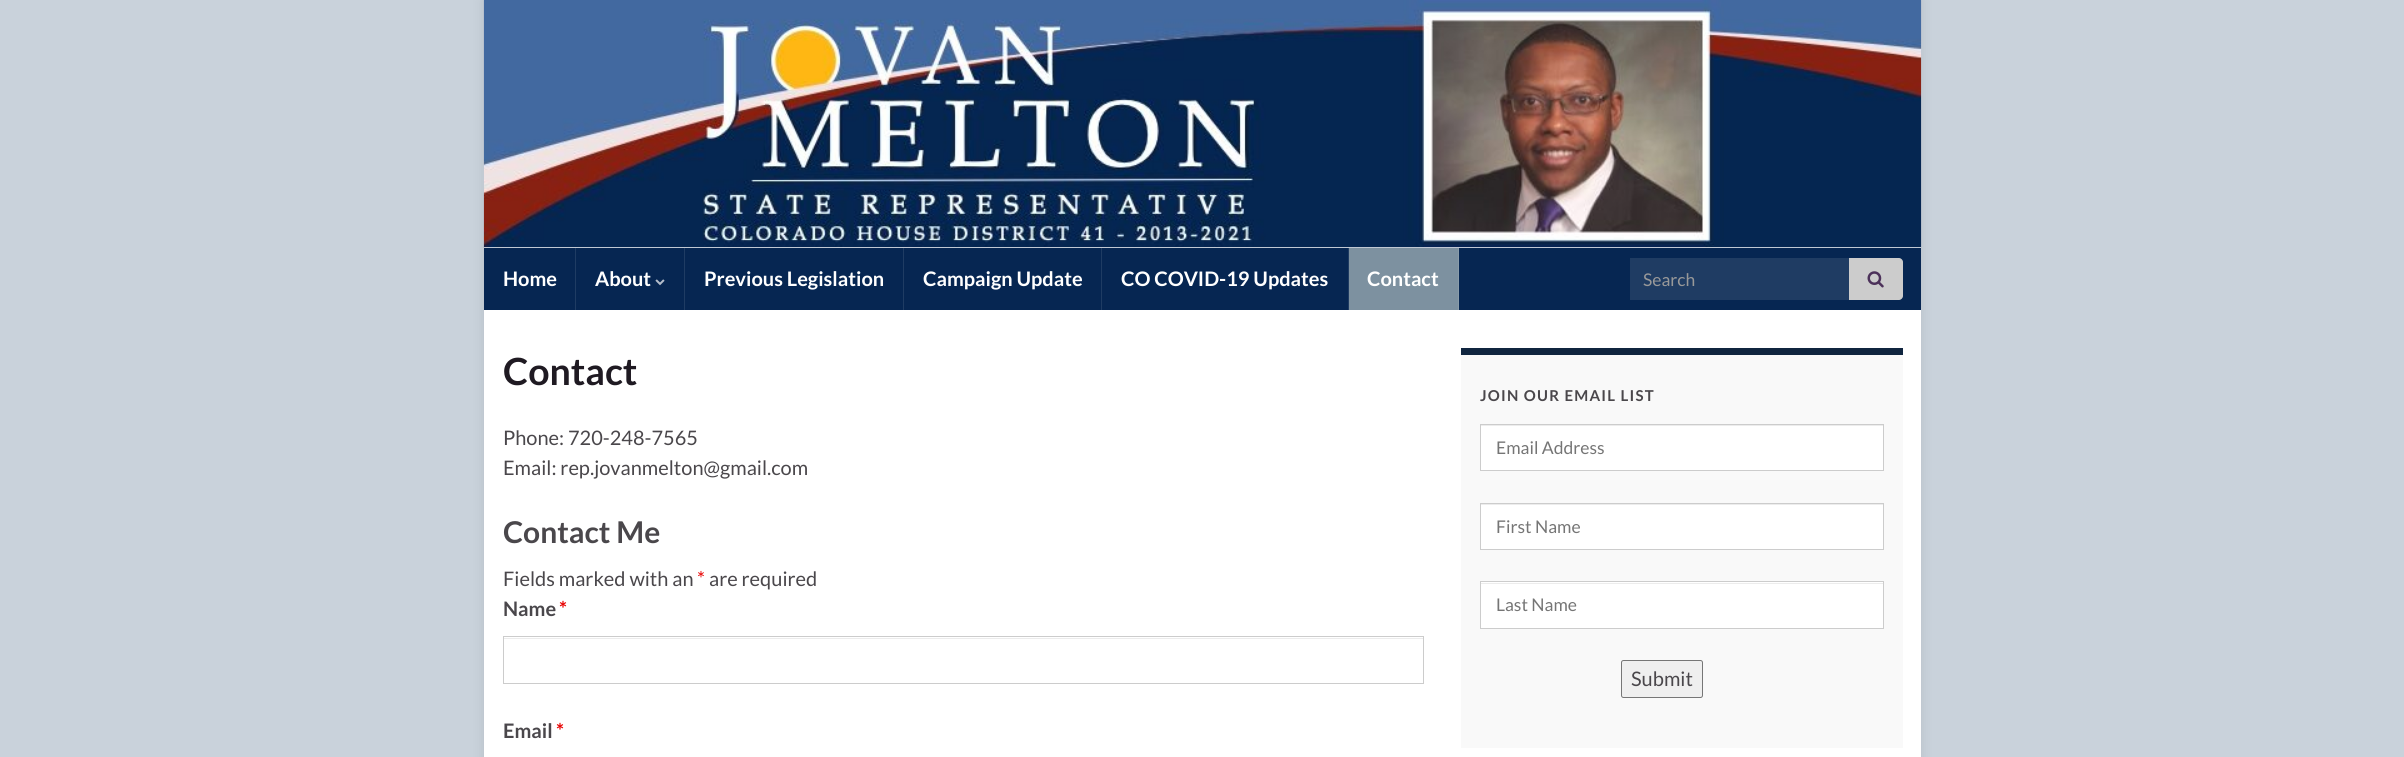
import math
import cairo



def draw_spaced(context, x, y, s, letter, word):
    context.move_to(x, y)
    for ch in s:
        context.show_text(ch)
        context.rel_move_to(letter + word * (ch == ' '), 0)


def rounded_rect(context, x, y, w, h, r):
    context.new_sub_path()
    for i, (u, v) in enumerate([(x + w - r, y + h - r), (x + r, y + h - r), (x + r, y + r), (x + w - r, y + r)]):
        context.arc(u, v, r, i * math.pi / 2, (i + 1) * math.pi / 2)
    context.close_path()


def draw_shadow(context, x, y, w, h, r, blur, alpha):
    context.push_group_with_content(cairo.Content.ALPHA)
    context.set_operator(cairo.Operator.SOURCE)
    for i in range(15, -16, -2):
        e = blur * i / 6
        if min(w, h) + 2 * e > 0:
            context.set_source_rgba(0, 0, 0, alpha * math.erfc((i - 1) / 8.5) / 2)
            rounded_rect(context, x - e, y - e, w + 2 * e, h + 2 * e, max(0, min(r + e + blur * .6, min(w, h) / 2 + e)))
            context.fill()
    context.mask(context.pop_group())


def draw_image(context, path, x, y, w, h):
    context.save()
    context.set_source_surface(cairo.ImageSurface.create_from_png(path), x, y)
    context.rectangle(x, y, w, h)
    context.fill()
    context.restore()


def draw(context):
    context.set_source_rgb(201 / 255, 210 / 255, 219 / 255)
    context.paint()
    context.set_source_rgb(0, 0, 0)
    draw_shadow(context, 484, 0, 1437, 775, 0, 6, 0.1)
    context.set_source_rgb(1, 1, 1)
    context.rectangle(484, 247, 1437, 1)
    context.fill()
    draw_image(context, "images/1.png", 483, 0, 1439, 248)
    context.set_source_rgb(6 / 255, 38 / 255, 82 / 255)
    context.rectangle(484, 248, 1437, 62)
    context.fill()
    context.set_source_rgb(31 / 255, 60 / 255, 99 / 255)
    context.rectangle(575, 248, 1, 62)
    context.fill()
    context.rectangle(684, 248, 1, 62)
    context.fill()
    draw_image(context, "images/2.png", 655, 279, 10, 7)
    context.rectangle(903, 248, 1, 62)
    context.fill()
    context.rectangle(1101, 248, 1, 62)
    context.fill()
    context.rectangle(1348, 248, 1, 62)
    context.fill()
    context.set_source_rgb(125 / 255, 145 / 255, 160 / 255)
    context.rectangle(1349, 248, 109, 62)
    context.fill()
    context.set_source_rgb(138 / 255, 156 / 255, 170 / 255)
    context.rectangle(1458, 248, 1, 62)
    context.fill()
    context.set_source_rgb(31 / 255, 60 / 255, 99 / 255)
    context.rectangle(1630, 258, 219, 42)
    context.fill()
    context.set_source_rgb(204 / 255, 204 / 255, 204 / 255)
    context.new_path()
    context.move_to(1849, 258)
    context.line_to(1899, 258)
    context.curve_to(1901, 258, 1903, 260, 1903, 262)
    context.line_to(1903, 296)
    context.curve_to(1903, 298, 1901, 300, 1899, 300)
    context.line_to(1849, 300)
    context.close_path()
    context.fill()
    draw_image(context, "images/3.png", 1867, 271, 17, 17)
    context.set_source_rgb(1, 1, 1)
    context.rectangle(484, 310, 1437, 447)
    context.fill()
    context.set_source_rgb(236 / 255, 236 / 255, 236 / 255)
    context.rectangle(504, 638, 919, 1)
    context.fill()
    context.rectangle(503.5, 636.5, 920, 47)
    context.set_source_rgb(204 / 255, 204 / 255, 204 / 255)
    context.set_line_width(1)
    context.stroke()
    context.set_source_rgb(249 / 255, 249 / 255, 249 / 255)
    context.rectangle(1461, 355, 442, 393)
    context.fill()
    context.set_source_rgb(16 / 255, 37 / 255, 63 / 255)
    context.rectangle(1461, 348, 442, 7)
    context.fill()
    context.set_source_rgb(1, 1, 1)
    context.rectangle(1481, 426, 402, 44)
    context.fill()
    context.set_source_rgb(236 / 255, 236 / 255, 236 / 255)
    context.rectangle(1481, 425, 402, 1)
    context.fill()
    context.rectangle(1480.5, 424.5, 403, 46)
    context.set_source_rgb(204 / 255, 204 / 255, 204 / 255)
    context.stroke()
    context.set_source_rgb(1, 1, 1)
    context.rectangle(1481, 505, 402, 44)
    context.fill()
    context.set_source_rgb(236 / 255, 236 / 255, 236 / 255)
    context.rectangle(1481, 504, 402, 1)
    context.fill()
    context.rectangle(1480.5, 503.5, 403, 46)
    context.set_source_rgb(204 / 255, 204 / 255, 204 / 255)
    context.stroke()
    context.set_source_rgb(1, 1, 1)
    context.rectangle(1481, 582, 402, 46)
    context.fill()
    context.set_source_rgb(236 / 255, 236 / 255, 236 / 255)
    context.rectangle(1481, 583, 402, 1)
    context.fill()
    context.rectangle(1480.5, 581.5, 403, 47)
    context.set_source_rgb(204 / 255, 204 / 255, 204 / 255)
    context.stroke()
    context.set_source_rgb(239 / 255, 239 / 255, 239 / 255)
    rounded_rect(context, 1621.5, 660.5, 81, 37, 2)
    context.fill_preserve()
    context.set_source_rgb(118 / 255, 118 / 255, 118 / 255)
    context.stroke()
    context.select_font_face("Lato", cairo.FontSlant.NORMAL, cairo.FontWeight.BOLD)
    context.set_font_size(20)
    context.set_source_rgb(1, 1, 1)
    context.move_to(503, 286)
    context.show_text("Home")
    context.move_to(595, 286)
    context.show_text("About")
    context.move_to(704, 286)
    context.show_text("Previous Legislation")
    context.move_to(923, 286)
    context.show_text("Campaign Update")
    context.move_to(1121, 286)
    context.show_text("CO COVID-19 Updates")
    context.move_to(1367, 286)
    context.show_text("Contact")
    context.select_font_face("Lato")
    context.set_font_size(17.5)
    context.set_source_rgb(153 / 255, 153 / 255, 153 / 255)
    context.move_to(1643, 286)
    context.show_text("Search")
    context.select_font_face("Lato", cairo.FontSlant.NORMAL, cairo.FontWeight.BOLD)
    context.set_font_size(37.5)
    context.set_source_rgb(31 / 255, 26 / 255, 34 / 255)
    context.move_to(503, 385)
    context.show_text("Contact")
    context.select_font_face("Lato")
    context.set_font_size(20)
    context.set_source_rgb(74 / 255, 71 / 255, 75 / 255)
    context.move_to(503, 445)
    context.show_text("Phone: 720-248-7565")
    context.move_to(503, 475)
    context.show_text("Email: rep.jovanmelton@gmail.com")
    context.select_font_face("Lato", cairo.FontSlant.NORMAL, cairo.FontWeight.BOLD)
    context.set_font_size(30)
    context.move_to(503, 543)
    context.show_text("Contact Me")
    context.select_font_face("Lato")
    context.set_font_size(20)
    context.move_to(503, 586)
    context.show_text("Fields marked with an")
    context.set_source_rgb(232 / 255, 0, 0)
    context.move_to(697, 586)
    context.show_text("*")
    context.set_source_rgb(74 / 255, 71 / 255, 75 / 255)
    context.move_to(709, 586)
    context.show_text("are required")
    context.select_font_face("Lato", cairo.FontSlant.NORMAL, cairo.FontWeight.BOLD)
    context.move_to(503, 616)
    context.show_text("Name")
    context.set_source_rgb(232 / 255, 0, 0)
    context.move_to(559, 616)
    context.show_text("*")
    context.set_source_rgb(74 / 255, 71 / 255, 75 / 255)
    context.move_to(503, 738)
    context.show_text("Email")
    context.set_source_rgb(232 / 255, 0, 0)
    context.move_to(556, 738)
    context.show_text("*")
    context.set_font_size(15)
    context.set_source_rgb(74 / 255, 71 / 255, 75 / 255)
    draw_spaced(context, 1480, 401, "JOIN OUR EMAIL LIST", 1.25, 0)
    context.select_font_face("Lato")
    context.set_font_size(17.5)
    context.set_source_rgb(117 / 255, 117 / 255, 117 / 255)
    context.move_to(1496, 454)
    context.show_text("Email Address")
    context.move_to(1496, 533)
    context.show_text("First Name")
    context.move_to(1496, 611)
    context.show_text("Last Name")
    context.set_font_size(20)
    context.set_source_rgb(74 / 255, 71 / 255, 75 / 255)
    context.move_to(1631, 686)
    context.show_text("Submit")


surface = cairo.ImageSurface(cairo.Format.RGB24, 2404, 757)
context = cairo.Context(surface)
options = cairo.FontOptions()
options.set_hint_metrics(cairo.HintMetrics.OFF)
options.set_hint_style(cairo.HintStyle.NONE)
context.set_font_options(options)
context.set_miter_limit(4)
draw(context)
surface.write_to_png("out.png")
